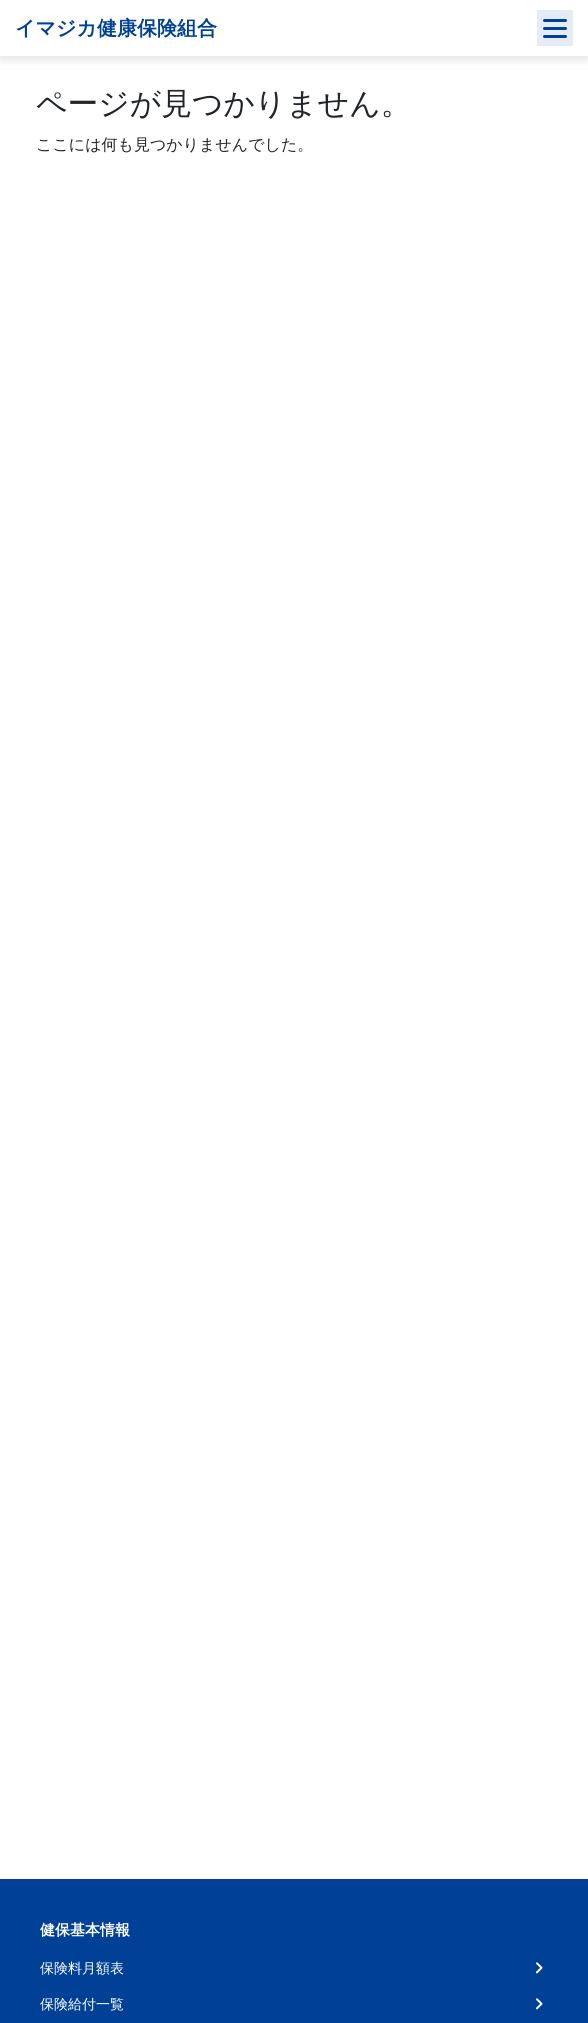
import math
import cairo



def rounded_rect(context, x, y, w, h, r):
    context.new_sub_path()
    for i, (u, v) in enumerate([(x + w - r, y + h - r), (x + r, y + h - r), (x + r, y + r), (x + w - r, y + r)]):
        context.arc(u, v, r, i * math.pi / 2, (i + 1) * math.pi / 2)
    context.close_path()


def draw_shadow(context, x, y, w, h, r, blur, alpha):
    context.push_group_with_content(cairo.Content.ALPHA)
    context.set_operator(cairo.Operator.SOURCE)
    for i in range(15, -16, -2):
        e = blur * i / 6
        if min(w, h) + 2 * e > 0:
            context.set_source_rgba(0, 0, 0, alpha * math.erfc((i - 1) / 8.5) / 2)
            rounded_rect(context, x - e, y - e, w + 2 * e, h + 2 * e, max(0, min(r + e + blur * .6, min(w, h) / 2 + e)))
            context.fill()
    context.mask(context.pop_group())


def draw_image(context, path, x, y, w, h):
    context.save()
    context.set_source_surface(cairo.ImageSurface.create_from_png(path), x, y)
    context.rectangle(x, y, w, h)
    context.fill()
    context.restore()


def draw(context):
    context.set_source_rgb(1, 1, 1)
    context.paint()
    context.save()
    context.rectangle(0, 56, 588, 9)
    context.clip()
    context.set_source_rgb(0, 0, 0)
    draw_shadow(context, 0, 3, 588, 56, 0, 6, 0.12)
    context.restore()
    context.set_source_rgb(230 / 255, 236 / 255, 245 / 255)
    context.rectangle(537, 10, 36, 36)
    context.fill()
    context.set_source_rgb(0, 64 / 255, 150 / 255)
    rounded_rect(context, 543, 19, 24, 3, 1.5)
    context.fill()
    rounded_rect(context, 543, 27, 24, 3, 1.5)
    context.fill()
    rounded_rect(context, 543, 35, 24, 3, 1.5)
    context.fill()
    context.rectangle(0, 1879, 588, 144)
    context.fill()
    draw_image(context, "images/1.png", 535, 1962, 8, 12)
    draw_image(context, "images/1.png", 535, 1998, 8, 12)
    context.select_font_face("WenQuanYi Zen Hei", cairo.FontSlant.NORMAL, cairo.FontWeight.BOLD)
    context.set_font_size(20)
    context.move_to(15, 35)
    context.show_text("イマジカ健康保険組合")
    context.select_font_face("WenQuanYi Zen Hei Medium")
    context.set_font_size(30.75)
    context.set_source_rgb(33 / 255, 37 / 255, 41 / 255)
    context.move_to(36, 114)
    context.show_text("ページが見つかりません。")
    context.set_font_size(16)
    context.move_to(36, 150)
    context.show_text("ここには何も見つかりませんでした。")
    context.select_font_face("WenQuanYi Zen Hei", cairo.FontSlant.NORMAL, cairo.FontWeight.BOLD)
    context.set_font_size(15)
    context.set_source_rgb(1, 1, 1)
    context.move_to(40, 1935)
    context.show_text("健保基本情報")
    context.select_font_face("WenQuanYi Zen Hei Medium")
    context.set_font_size(14)
    context.move_to(40, 1973)
    context.show_text("保険料月額表")
    context.move_to(40, 2009)
    context.show_text("保険給付一覧")


surface = cairo.ImageSurface(cairo.Format.RGB24, 588, 2023)
context = cairo.Context(surface)
options = cairo.FontOptions()
options.set_hint_metrics(cairo.HintMetrics.OFF)
options.set_hint_style(cairo.HintStyle.NONE)
context.set_font_options(options)
context.set_miter_limit(4)
draw(context)
surface.write_to_png("out.png")
